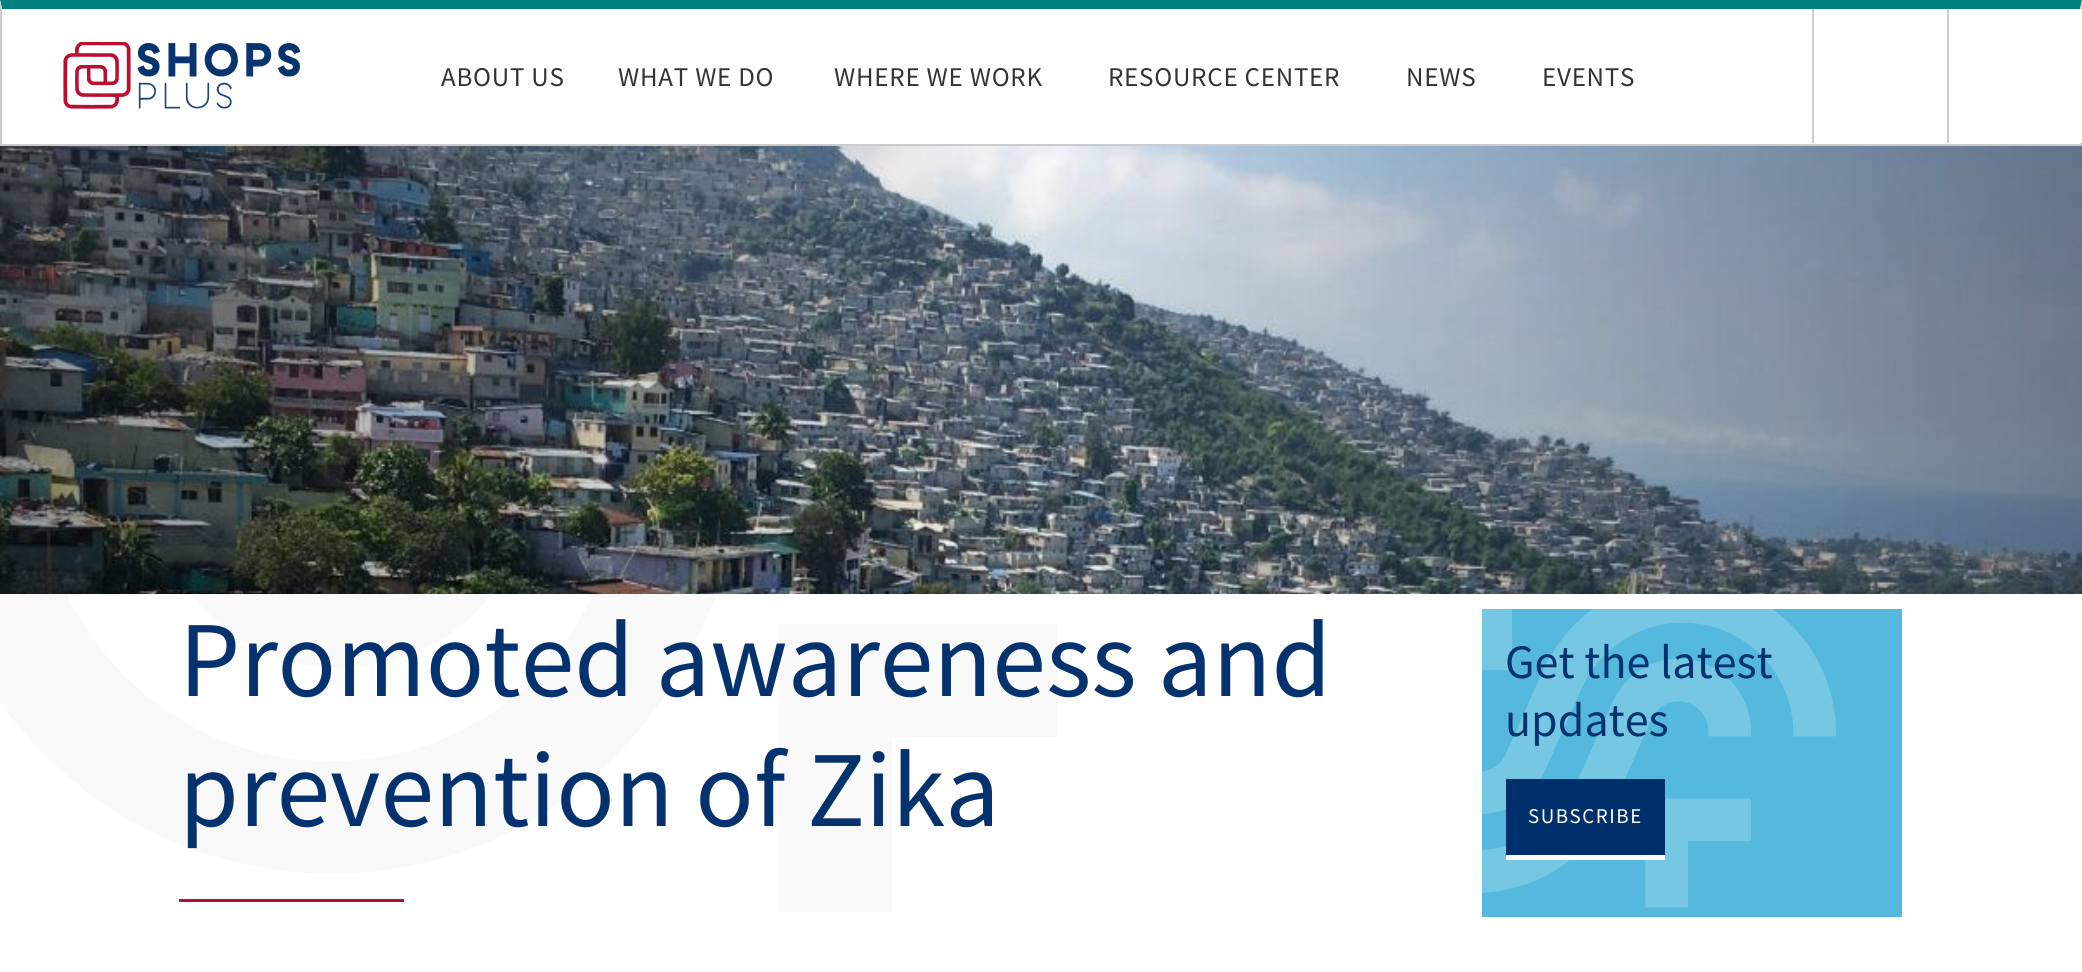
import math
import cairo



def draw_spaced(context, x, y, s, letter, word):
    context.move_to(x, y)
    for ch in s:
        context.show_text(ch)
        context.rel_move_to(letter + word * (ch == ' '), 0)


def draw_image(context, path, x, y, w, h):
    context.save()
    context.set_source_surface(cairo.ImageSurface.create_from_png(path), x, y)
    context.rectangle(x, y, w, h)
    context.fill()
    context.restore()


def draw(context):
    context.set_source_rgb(1, 1, 1)
    context.paint()
    draw_image(context, "images/1.png", 0, 594, 1058, 318)
    context.set_source_rgb(2 / 255, 128 / 255, 127 / 255)
    context.new_path()
    context.move_to(0, 0)
    context.line_to(2082, 0)
    context.line_to(2080, 9)
    context.line_to(2, 9)
    context.close_path()
    context.fill()
    context.set_source_rgb(204 / 255, 204 / 255, 204 / 255)
    context.new_path()
    context.move_to(2082, 0)
    context.line_to(2082, 146)
    context.line_to(2080, 144)
    context.line_to(2080, 9)
    context.close_path()
    context.fill()
    context.rectangle(0, 144, 2082, 2)
    context.fill()
    context.new_path()
    context.move_to(0, 146)
    context.line_to(0, 0)
    context.line_to(2, 9)
    context.line_to(2, 144)
    context.close_path()
    context.fill()
    draw_image(context, "images/2.png", 63, 42, 238, 67)
    context.rectangle(1812, 9, 2, 134)
    context.fill()
    context.rectangle(1947, 9, 2, 134)
    context.fill()
    context.set_source_rgb(1, 1, 1)
    context.rectangle(2080, 9, 2, 134)
    context.fill()
    draw_image(context, "images/3.png", 0, 146, 2082, 448)
    context.set_source_rgb(185 / 255, 12 / 255, 47 / 255)
    context.rectangle(179, 899, 225, 3)
    context.fill()
    context.set_source_rgb(84 / 255, 185 / 255, 221 / 255)
    context.rectangle(1482, 609, 420, 308)
    context.fill()
    draw_image(context, "images/4.png", 1482, 609, 354, 299)
    context.set_source_rgb(0, 48 / 255, 107 / 255)
    context.rectangle(1506, 779, 159, 76)
    context.fill()
    context.set_source_rgb(1, 1, 1)
    context.rectangle(1506, 855, 159, 5)
    context.fill()
    context.select_font_face("Source Sans Pro")
    context.set_font_size(27)
    context.set_source_rgb(51 / 255, 51 / 255, 51 / 255)
    draw_spaced(context, 441, 86, "ABOUT US", 0.75, 0)
    draw_spaced(context, 618, 86, "WHAT WE DO", 0.75, 0)
    draw_spaced(context, 834, 86, "WHERE WE WORK", 0.75, 0)
    draw_spaced(context, 1108, 86, "RESOURCE CENTER", 0.75, 0)
    draw_spaced(context, 1406, 86, "NEWS", 0.75, 0)
    draw_spaced(context, 1542, 86, "EVENTS", 0.75, 0)
    context.set_font_size(108)
    context.set_source_rgb(4 / 255, 50 / 255, 110 / 255)
    context.move_to(179, 696)
    context.show_text("Promoted awareness and")
    context.move_to(179, 826)
    context.show_text("prevention of Zika")
    context.set_font_size(48)
    context.move_to(1505, 678)
    context.show_text("Get the latest")
    context.move_to(1505, 736)
    context.show_text("updates")
    context.set_font_size(21)
    context.set_source_rgb(1, 1, 1)
    draw_spaced(context, 1528, 823, "SUBSCRIBE", 1.5, 0)


surface = cairo.ImageSurface(cairo.Format.RGB24, 2082, 972)
context = cairo.Context(surface)
options = cairo.FontOptions()
options.set_hint_metrics(cairo.HintMetrics.OFF)
options.set_hint_style(cairo.HintStyle.NONE)
context.set_font_options(options)
context.set_miter_limit(4)
draw(context)
surface.write_to_png("out.png")
